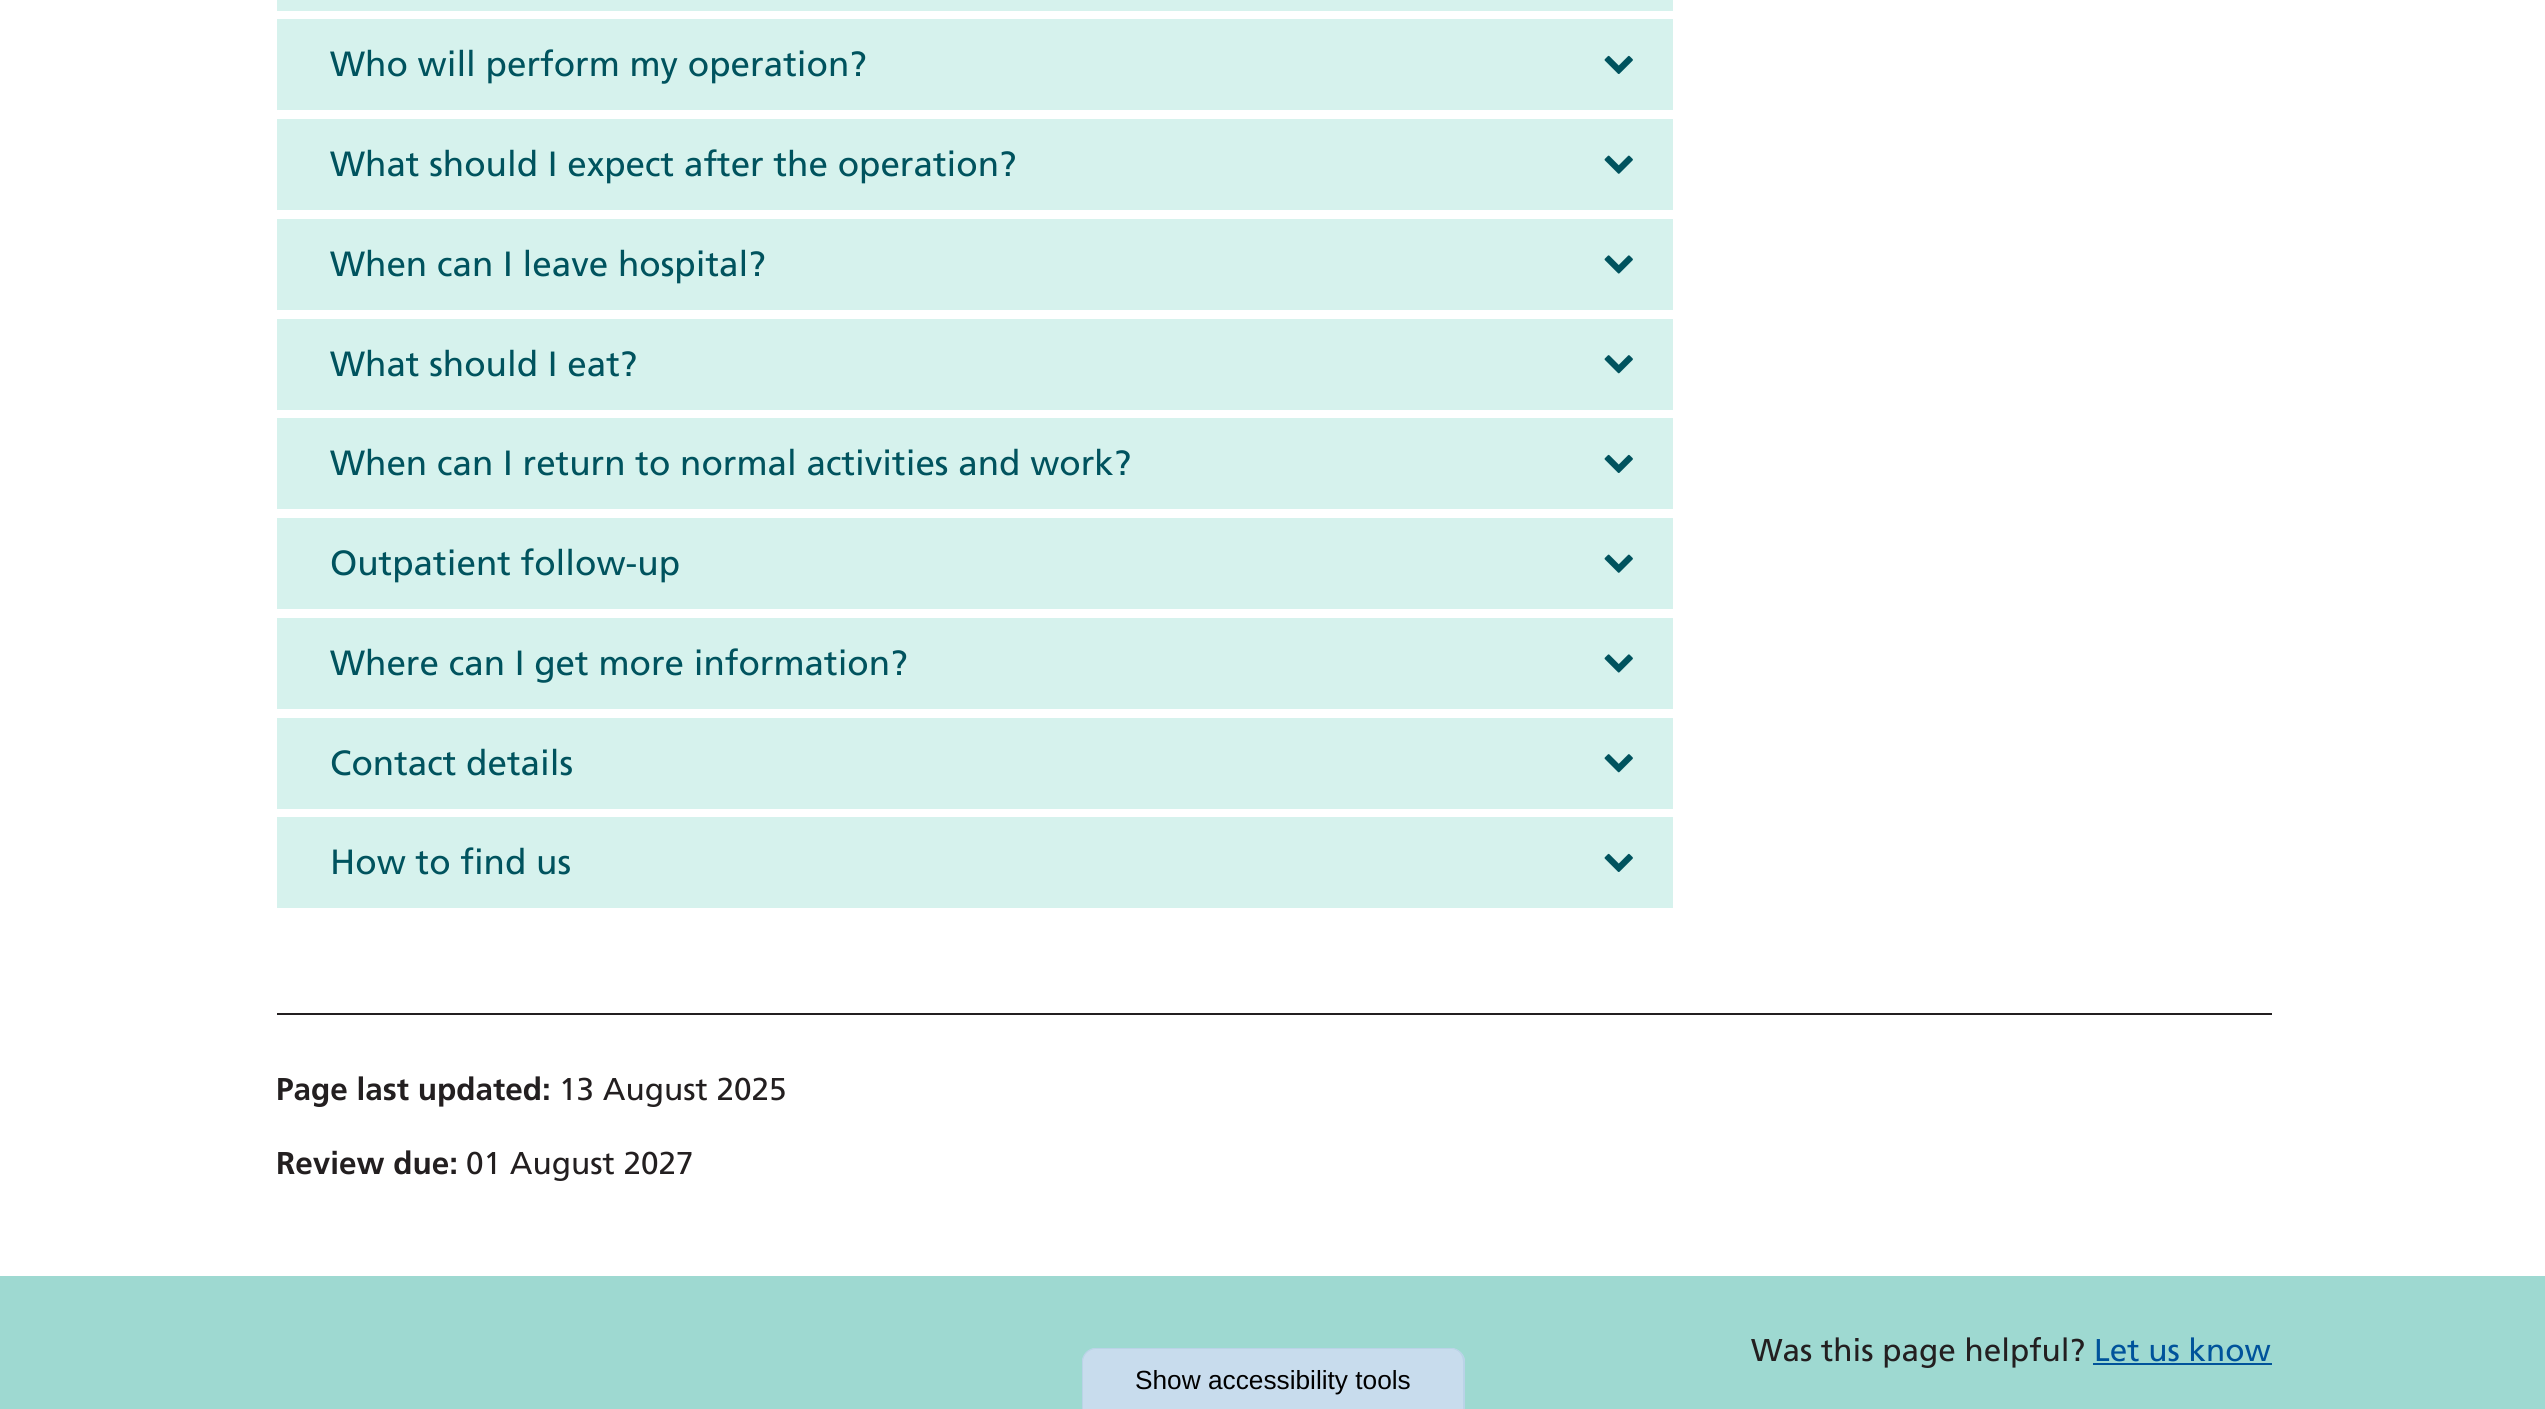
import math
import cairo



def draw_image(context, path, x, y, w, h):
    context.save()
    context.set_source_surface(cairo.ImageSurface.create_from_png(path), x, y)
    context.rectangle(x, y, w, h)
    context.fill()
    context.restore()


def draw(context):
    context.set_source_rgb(1, 1, 1)
    context.paint()
    context.set_source_rgb(214 / 255, 242 / 255, 237 / 255)
    context.rectangle(277, 0, 1396, 11)
    context.fill()
    context.rectangle(277, 19, 1396, 91)
    context.fill()
    draw_image(context, "images/1.png", 1604, 55, 29, 19)
    context.rectangle(277, 119, 1396, 91)
    context.fill()
    draw_image(context, "images/2.png", 1604, 155, 29, 19)
    context.rectangle(277, 219, 1396, 91)
    context.fill()
    draw_image(context, "images/3.png", 1604, 255, 29, 19)
    context.rectangle(277, 319, 1396, 91)
    context.fill()
    draw_image(context, "images/4.png", 1604, 355, 29, 19)
    context.rectangle(277, 418, 1396, 91)
    context.fill()
    draw_image(context, "images/1.png", 1604, 454, 29, 19)
    context.rectangle(277, 518, 1396, 91)
    context.fill()
    draw_image(context, "images/2.png", 1604, 554, 29, 19)
    context.rectangle(277, 618, 1396, 91)
    context.fill()
    draw_image(context, "images/3.png", 1604, 654, 29, 19)
    context.rectangle(277, 718, 1396, 91)
    context.fill()
    draw_image(context, "images/4.png", 1604, 754, 29, 19)
    context.rectangle(277, 817, 1396, 91)
    context.fill()
    draw_image(context, "images/1.png", 1604, 853, 29, 19)
    context.set_source_rgb(35 / 255, 31 / 255, 32 / 255)
    context.rectangle(277, 1013, 1995, 2)
    context.fill()
    context.set_source_rgb(158 / 255, 217 / 255, 209 / 255)
    context.rectangle(0, 1276, 2545, 133)
    context.fill()
    context.set_source_rgb(0, 83 / 255, 155 / 255)
    context.rectangle(2093, 1363, 179, 2)
    context.fill()
    context.set_source_rgb(200 / 255, 220 / 255, 237 / 255)
    context.new_path()
    context.move_to(1096, 1348)
    context.line_to(1451, 1348)
    context.curve_to(1458.5, 1348, 1465, 1354.5, 1465, 1362)
    context.line_to(1465, 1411)
    context.line_to(1082, 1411)
    context.line_to(1082, 1362)
    context.curve_to(1082, 1354.5, 1088.5, 1348, 1096, 1348)
    context.close_path()
    context.fill()
    context.set_source_rgb(186 / 255, 211 / 255, 231 / 255)
    context.set_fill_rule(cairo.FillRule.EVEN_ODD)
    context.new_path()
    context.move_to(1096, 1348)
    context.line_to(1451, 1348)
    context.curve_to(1458, 1348, 1465, 1354, 1465, 1362)
    context.line_to(1465, 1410)
    context.line_to(1082, 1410)
    context.line_to(1082, 1362)
    context.curve_to(1082, 1354, 1088, 1348, 1096, 1348)
    context.close_path()
    context.move_to(1096, 1349)
    context.line_to(1451, 1349)
    context.curve_to(1458, 1349, 1463, 1355, 1463, 1362)
    context.line_to(1463, 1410)
    context.line_to(1083, 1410)
    context.line_to(1083, 1362)
    context.curve_to(1083, 1355, 1089, 1349, 1096, 1349)
    context.close_path()
    context.fill()
    context.select_font_face("Frutiger")
    context.set_font_size(35)
    context.set_source_rgb(0, 83 / 255, 94 / 255)
    context.move_to(330, 76)
    context.show_text("Who will perform my operation?")
    context.move_to(330, 176)
    context.show_text("What should I expect after the operation?")
    context.move_to(330, 276)
    context.show_text("When can I leave hospital?")
    context.move_to(330, 376)
    context.show_text("What should I eat?")
    context.move_to(330, 475)
    context.show_text("When can I return to normal activities and work?")
    context.move_to(330, 575)
    context.show_text("Outpatient follow-up")
    context.move_to(330, 675)
    context.show_text("Where can I get more information?")
    context.move_to(330, 775)
    context.show_text("Contact details")
    context.move_to(330, 874)
    context.show_text("How to find us")
    context.select_font_face("Frutiger", cairo.FontSlant.NORMAL, cairo.FontWeight.BOLD)
    context.set_font_size(31.5)
    context.set_source_rgb(35 / 255, 31 / 255, 32 / 255)
    context.move_to(276, 1100)
    context.show_text("Page last updated:")
    context.select_font_face("Frutiger")
    context.move_to(559, 1100)
    context.show_text("13 August 2025")
    context.select_font_face("Frutiger", cairo.FontSlant.NORMAL, cairo.FontWeight.BOLD)
    context.move_to(276, 1174)
    context.show_text("Review due:")
    context.select_font_face("Frutiger")
    context.move_to(466, 1174)
    context.show_text("01 August 2027")
    context.move_to(1751, 1361)
    context.show_text("Was this page helpful?")
    context.set_source_rgb(0, 83 / 255, 155 / 255)
    context.move_to(2094, 1361)
    context.show_text("Let us know")
    context.select_font_face("Liberation Sans")
    context.set_font_size(26.25)
    context.set_source_rgb(0, 0, 0)
    context.move_to(1135, 1389)
    context.show_text("Show accessibility tools")


surface = cairo.ImageSurface(cairo.Format.RGB24, 2545, 1409)
context = cairo.Context(surface)
options = cairo.FontOptions()
options.set_hint_metrics(cairo.HintMetrics.OFF)
options.set_hint_style(cairo.HintStyle.NONE)
context.set_font_options(options)
context.set_miter_limit(4)
draw(context)
surface.write_to_png("out.png")
